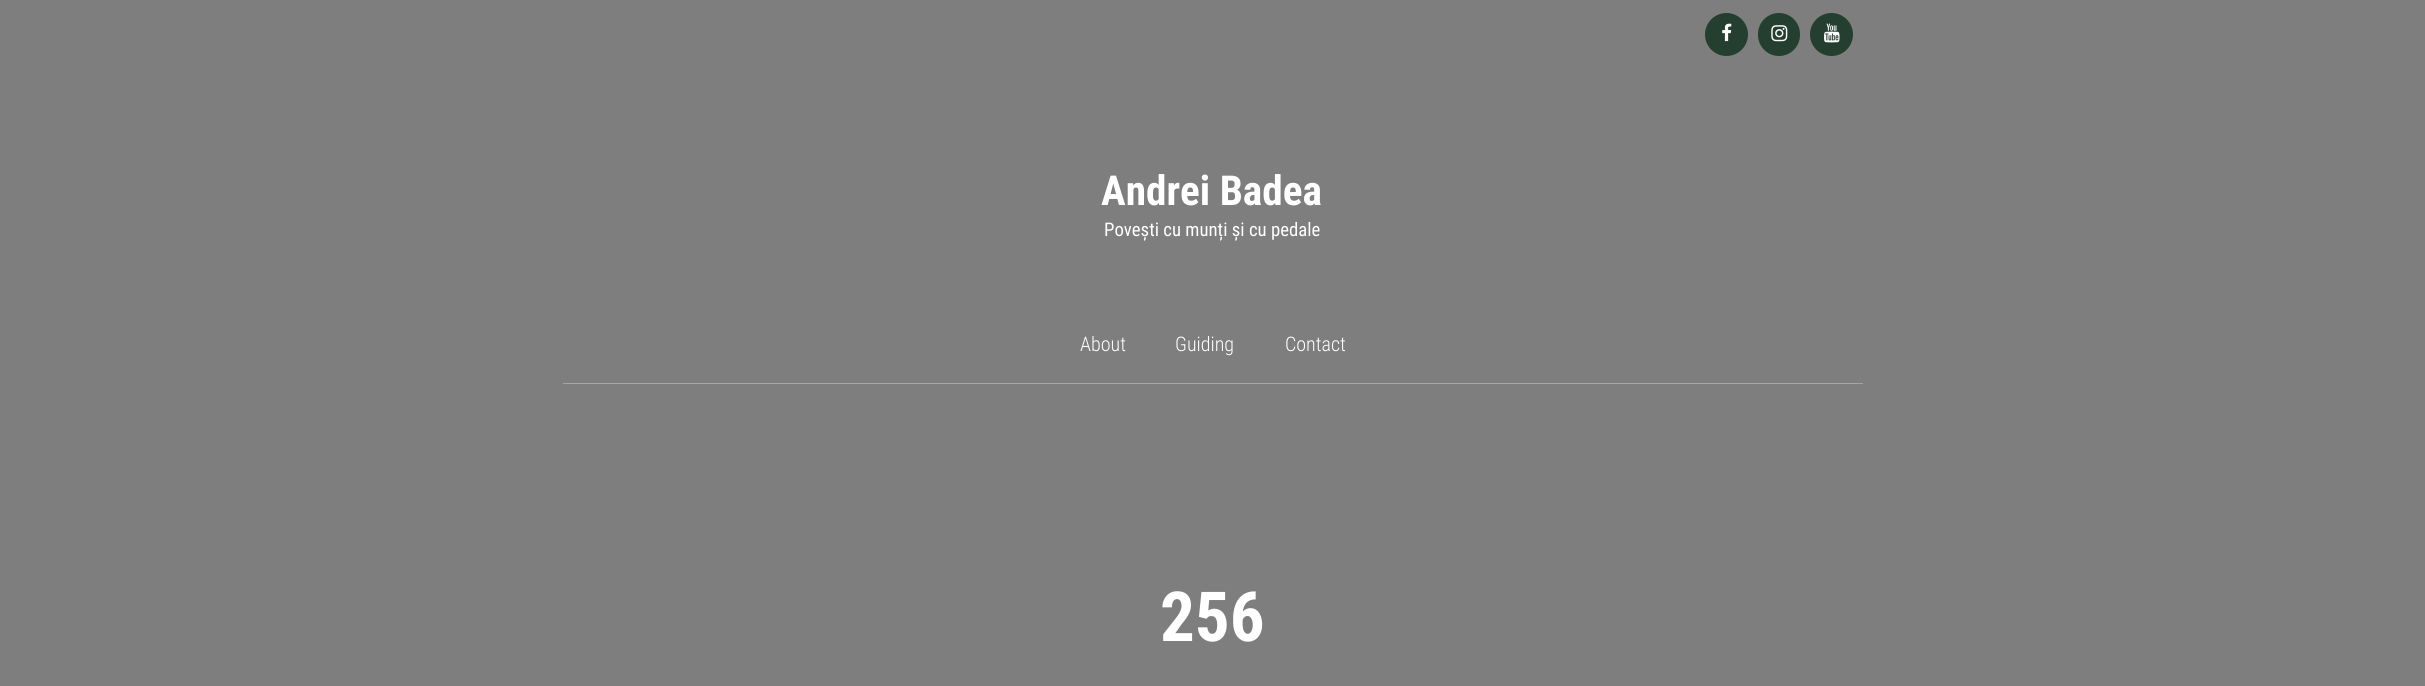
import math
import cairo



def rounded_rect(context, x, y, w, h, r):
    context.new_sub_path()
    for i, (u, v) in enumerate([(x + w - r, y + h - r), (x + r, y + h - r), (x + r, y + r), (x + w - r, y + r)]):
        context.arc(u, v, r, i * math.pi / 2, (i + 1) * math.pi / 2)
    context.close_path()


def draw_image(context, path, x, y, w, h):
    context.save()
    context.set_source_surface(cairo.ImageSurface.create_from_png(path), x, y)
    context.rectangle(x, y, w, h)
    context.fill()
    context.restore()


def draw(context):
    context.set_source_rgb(126 / 255, 126 / 255, 126 / 255)
    context.paint()
    context.set_source_rgb(36 / 255, 63 / 255, 48 / 255)
    context.arc(1726.5, 34.5, 21.5, 0, 2 * math.pi)
    context.fill()
    draw_image(context, "images/1.png", 1722, 23, 10, 19)
    rounded_rect(context, 1758, 13, 42, 43, 21)
    context.fill()
    draw_image(context, "images/2.png", 1771, 25, 17, 17)
    context.arc(1831.5, 34.5, 21.5, 0, 2 * math.pi)
    context.fill()
    draw_image(context, "images/3.png", 1824, 23, 16, 20)
    context.set_source_rgb(165 / 255, 165 / 255, 165 / 255)
    context.rectangle(563, 383, 1300, 1)
    context.fill()
    context.select_font_face("Roboto Condensed", cairo.FontSlant.NORMAL, cairo.FontWeight.BOLD)
    context.set_font_size(41.25)
    context.set_source_rgb(1, 1, 1)
    context.move_to(1101, 205)
    context.show_text("Andrei Badea")
    context.select_font_face("Roboto Condensed")
    context.set_font_size(18.75)
    context.move_to(1104, 236)
    context.show_text("Povești cu munți și cu pedale")
    context.select_font_face("Roboto Condensed Light")
    context.set_font_size(20)
    context.move_to(1080, 351)
    context.show_text("About")
    context.move_to(1175, 351)
    context.show_text("Guiding")
    context.move_to(1285, 351)
    context.show_text("Contact")
    context.select_font_face("Roboto Condensed", cairo.FontSlant.NORMAL, cairo.FontWeight.BOLD)
    context.set_font_size(69)
    context.move_to(1160, 641)
    context.show_text("256")


surface = cairo.ImageSurface(cairo.Format.RGB24, 2425, 686)
context = cairo.Context(surface)
options = cairo.FontOptions()
options.set_hint_metrics(cairo.HintMetrics.OFF)
options.set_hint_style(cairo.HintStyle.NONE)
context.set_font_options(options)
context.set_miter_limit(4)
draw(context)
surface.write_to_png("out.png")
